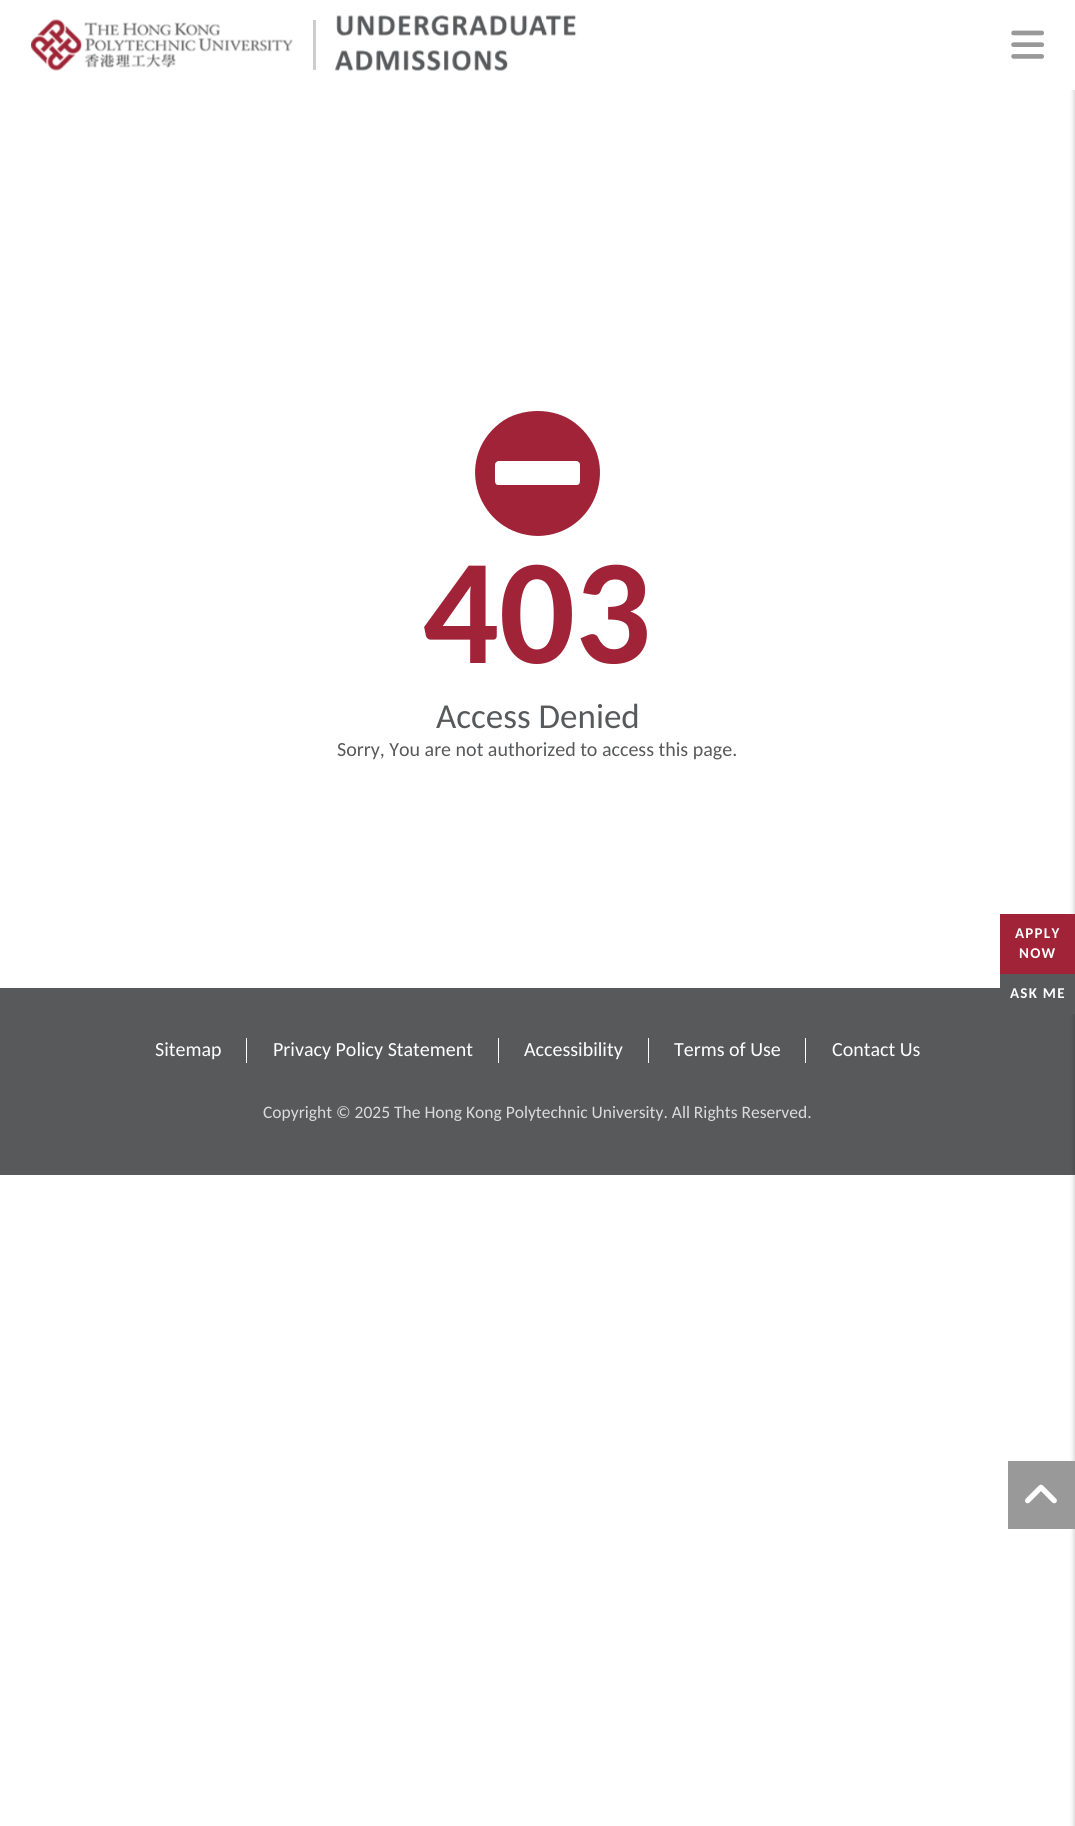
import math
import cairo



def draw_spaced(context, x, y, s, letter, word):
    context.move_to(x, y)
    for ch in s:
        context.show_text(ch)
        context.rel_move_to(letter + word * (ch == ' '), 0)


def rounded_rect(context, x, y, w, h, r):
    context.new_sub_path()
    for i, (u, v) in enumerate([(x + w - r, y + h - r), (x + r, y + h - r), (x + r, y + r), (x + w - r, y + r)]):
        context.arc(u, v, r, i * math.pi / 2, (i + 1) * math.pi / 2)
    context.close_path()


def draw_shadow(context, x, y, w, h, r, blur, alpha):
    context.push_group_with_content(cairo.Content.ALPHA)
    context.set_operator(cairo.Operator.SOURCE)
    for i in range(15, -16, -2):
        e = blur * i / 6
        if min(w, h) + 2 * e > 0:
            context.set_source_rgba(0, 0, 0, alpha * math.erfc((i - 1) / 8.5) / 2)
            rounded_rect(context, x - e, y - e, w + 2 * e, h + 2 * e, max(0, min(r + e + blur * .6, min(w, h) / 2 + e)))
            context.fill()
    context.mask(context.pop_group())


def draw_image(context, path, x, y, w, h):
    context.save()
    context.set_source_surface(cairo.ImageSurface.create_from_png(path), x, y)
    context.rectangle(x, y, w, h)
    context.fill()
    context.restore()


def draw(context):
    context.set_source_rgb(1, 1, 1)
    context.paint()
    context.set_source_rgb(88 / 255, 89 / 255, 91 / 255)
    context.rectangle(0, 988, 1075, 187)
    context.fill()
    context.set_source_rgb(0, 0, 0)
    draw_shadow(context, 1074, -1, 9, 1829, 0, 2.5, 0.2)
    context.set_source_rgb(1, 1, 1)
    context.rectangle(1070, 0, 5, 90)
    context.fill()
    context.set_source_rgb(205 / 255, 205 / 255, 205 / 255)
    context.rectangle(313, 20, 3, 50)
    context.fill()
    draw_image(context, "images/1.png", 31, 19, 262, 52)
    draw_image(context, "images/2.png", 335, 15, 242, 56)
    draw_image(context, "images/3.png", 1011, 30, 33, 29)
    context.set_source_rgb(160 / 255, 35 / 255, 55 / 255)
    context.new_path()
    context.move_to(538, 536)
    context.curve_to(597, 535, 623, 460, 575, 423)
    context.curve_to(565, 415, 551, 411, 538, 411)
    context.curve_to(524, 411, 510, 415, 500, 423)
    context.curve_to(452, 460, 478, 535, 538, 536)
    context.close_path()
    context.move_to(498, 461)
    context.line_to(577, 461)
    context.curve_to(579, 462, 580, 463, 580, 465)
    context.line_to(580, 481)
    context.curve_to(580, 483, 579, 485, 577, 485)
    context.line_to(498, 485)
    context.curve_to(496, 485, 495, 483, 495, 481)
    context.line_to(495, 465)
    context.curve_to(495, 463, 496, 462, 498, 461)
    context.close_path()
    context.fill()
    context.rectangle(1000, 914, 75, 60)
    context.fill()
    context.set_source_rgb(88 / 255, 89 / 255, 91 / 255)
    context.rectangle(1000, 974, 75, 40)
    context.fill()
    context.set_source_rgb(1, 1, 1)
    context.rectangle(246, 1038, 1, 25)
    context.fill()
    context.rectangle(498, 1038, 1, 25)
    context.fill()
    context.rectangle(648, 1038, 1, 25)
    context.fill()
    context.rectangle(805, 1038, 1, 25)
    context.fill()
    context.set_source_rgb(153 / 255, 153 / 255, 153 / 255)
    context.rectangle(1008, 1461, 67, 68)
    context.fill()
    draw_image(context, "images/4.png", 1025, 1484, 32, 20)
    context.select_font_face("Carlito", cairo.FontSlant.NORMAL, cairo.FontWeight.BOLD)
    context.set_font_size(150)
    context.set_source_rgb(160 / 255, 35 / 255, 55 / 255)
    context.move_to(423, 663)
    context.show_text("403")
    context.select_font_face("Carlito")
    context.set_font_size(35)
    context.set_source_rgb(88 / 255, 89 / 255, 91 / 255)
    context.move_to(436, 728)
    context.show_text("Access Denied")
    context.set_font_size(20)
    context.move_to(337, 756)
    context.show_text("Sorry, You are not authorized to access this page.")
    context.select_font_face("Carlito", cairo.FontSlant.NORMAL, cairo.FontWeight.BOLD)
    context.set_font_size(15)
    context.set_source_rgb(1, 1, 1)
    draw_spaced(context, 1015, 938, "APPLY", 1.25, 0)
    draw_spaced(context, 1019, 958, "NOW", 1.25, 0)
    draw_spaced(context, 1010, 998, "ASK ME", 1.25, 0)
    context.select_font_face("Carlito")
    context.set_font_size(20)
    context.move_to(155, 1056)
    context.show_text("Sitemap")
    context.move_to(273, 1056)
    context.show_text("Privacy Policy Statement")
    context.move_to(524, 1056)
    context.show_text("Accessibility")
    context.move_to(674, 1056)
    context.show_text("Terms of Use")
    context.move_to(832, 1056)
    context.show_text("Contact Us")
    context.set_font_size(17.5)
    context.set_source_rgb(219 / 255, 219 / 255, 219 / 255)
    context.move_to(263, 1118)
    context.show_text("Copyright © 2025 The Hong Kong Polytechnic University. All Rights Reserved.")


surface = cairo.ImageSurface(cairo.Format.RGB24, 1075, 1826)
context = cairo.Context(surface)
options = cairo.FontOptions()
options.set_hint_metrics(cairo.HintMetrics.OFF)
options.set_hint_style(cairo.HintStyle.NONE)
context.set_font_options(options)
context.set_miter_limit(4)
draw(context)
surface.write_to_png("out.png")
